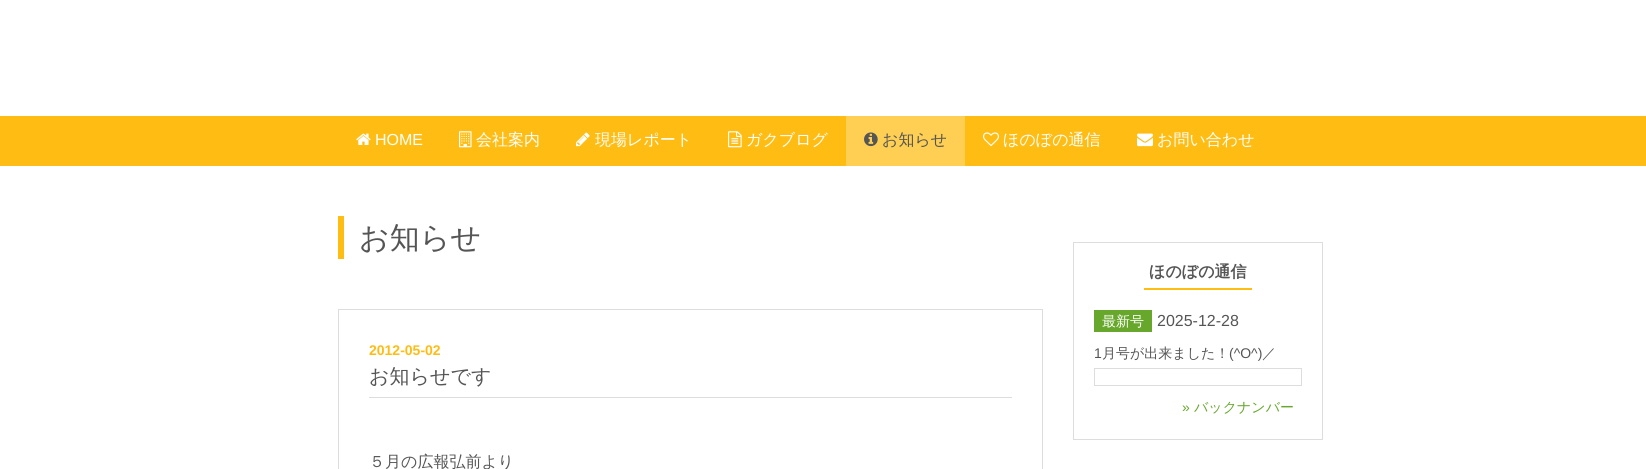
import math
import cairo



def draw_image(context, path, x, y, w, h):
    context.save()
    context.set_source_surface(cairo.ImageSurface.create_from_png(path), x, y)
    context.rectangle(x, y, w, h)
    context.fill()
    context.restore()


def draw(context):
    context.set_source_rgb(1, 1, 1)
    context.paint()
    context.set_source_rgb(1, 189 / 255, 20 / 255)
    context.rectangle(0, 116, 1646, 50)
    context.fill()
    draw_image(context, "images/1.png", 356, 133, 15, 12)
    draw_image(context, "images/2.png", 459, 131, 13, 17)
    draw_image(context, "images/3.png", 576, 132, 14, 15)
    draw_image(context, "images/4.png", 728, 131, 14, 17)
    context.set_source_rgb(1, 207 / 255, 83 / 255)
    context.rectangle(846, 116, 119, 50)
    context.fill()
    draw_image(context, "images/5.png", 864, 132, 14, 15)
    draw_image(context, "images/6.png", 983, 132, 16, 15)
    draw_image(context, "images/7.png", 1137, 133, 16, 14)
    context.set_source_rgb(1, 189 / 255, 20 / 255)
    context.rectangle(338, 216, 6, 43)
    context.fill()
    context.rectangle(338.5, 309.5, 704, 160)
    context.set_source_rgb(221 / 255, 221 / 255, 221 / 255)
    context.set_line_width(1)
    context.stroke()
    context.rectangle(369, 397, 643, 1)
    context.fill()
    context.rectangle(1073.5, 242.5, 249, 197)
    context.stroke()
    context.set_source_rgb(1, 189 / 255, 20 / 255)
    context.rectangle(1144, 288, 108, 2)
    context.fill()
    context.set_source_rgb(103 / 255, 167 / 255, 43 / 255)
    context.rectangle(1094, 310, 58, 22)
    context.fill()
    context.rectangle(1094.5, 368.5, 207, 17)
    context.set_source_rgb(221 / 255, 221 / 255, 221 / 255)
    context.stroke()
    context.select_font_face("Liberation Sans")
    context.set_font_size(16)
    context.set_source_rgb(1, 1, 1)
    context.move_to(375, 145)
    context.show_text("HOME")
    context.select_font_face("WenQuanYi Zen Hei Medium")
    context.move_to(476, 145)
    context.show_text("会社案内")
    context.move_to(595, 145)
    context.show_text("現場レポート")
    context.move_to(746, 145)
    context.show_text("ガクブログ")
    context.set_source_rgb(85 / 255, 85 / 255, 85 / 255)
    context.move_to(882, 145)
    context.show_text("お知らせ")
    context.set_source_rgb(1, 1, 1)
    context.move_to(1003, 145)
    context.show_text("ほのぼの通信")
    context.move_to(1157, 145)
    context.show_text("お問い合わせ")
    context.set_font_size(30)
    context.set_source_rgb(85 / 255, 85 / 255, 85 / 255)
    context.move_to(359, 248)
    context.show_text("お知らせ")
    context.select_font_face("Liberation Sans", cairo.FontSlant.NORMAL, cairo.FontWeight.BOLD)
    context.set_font_size(14)
    context.set_source_rgb(1, 189 / 255, 20 / 255)
    context.move_to(369, 355)
    context.show_text("2012-05-02")
    context.select_font_face("WenQuanYi Zen Hei Medium")
    context.set_font_size(20)
    context.set_source_rgb(85 / 255, 85 / 255, 85 / 255)
    context.move_to(369, 383)
    context.show_text("お知らせです")
    context.set_font_size(16)
    context.move_to(369, 467)
    context.show_text("５月の広報弘前より")
    context.select_font_face("WenQuanYi Zen Hei", cairo.FontSlant.NORMAL, cairo.FontWeight.BOLD)
    context.move_to(1149, 277)
    context.show_text("ほのぼの通信")
    context.select_font_face("WenQuanYi Zen Hei Medium")
    context.set_font_size(14)
    context.set_source_rgb(1, 1, 1)
    context.move_to(1102, 326)
    context.show_text("最新号")
    context.select_font_face("Liberation Sans")
    context.set_font_size(16)
    context.set_source_rgb(85 / 255, 85 / 255, 85 / 255)
    context.move_to(1157, 326)
    context.show_text("2025-12-28")
    context.set_font_size(14)
    context.move_to(1094, 358)
    context.show_text("1")
    context.select_font_face("WenQuanYi Zen Hei Medium")
    context.move_to(1102, 358)
    context.show_text("月号が出来ました！")
    context.select_font_face("Liberation Sans")
    context.move_to(1229, 358)
    context.show_text("(^O^)")
    context.select_font_face("WenQuanYi Zen Hei Medium")
    context.move_to(1262, 358)
    context.show_text("／")
    context.select_font_face("Liberation Sans")
    context.set_source_rgb(103 / 255, 167 / 255, 43 / 255)
    context.move_to(1182, 412)
    context.show_text("»")
    context.select_font_face("WenQuanYi Zen Hei Medium")
    context.move_to(1194, 412)
    context.show_text("バックナンバー")


surface = cairo.ImageSurface(cairo.Format.RGB24, 1646, 469)
context = cairo.Context(surface)
options = cairo.FontOptions()
options.set_hint_metrics(cairo.HintMetrics.OFF)
options.set_hint_style(cairo.HintStyle.NONE)
context.set_font_options(options)
context.set_miter_limit(4)
draw(context)
surface.write_to_png("out.png")
